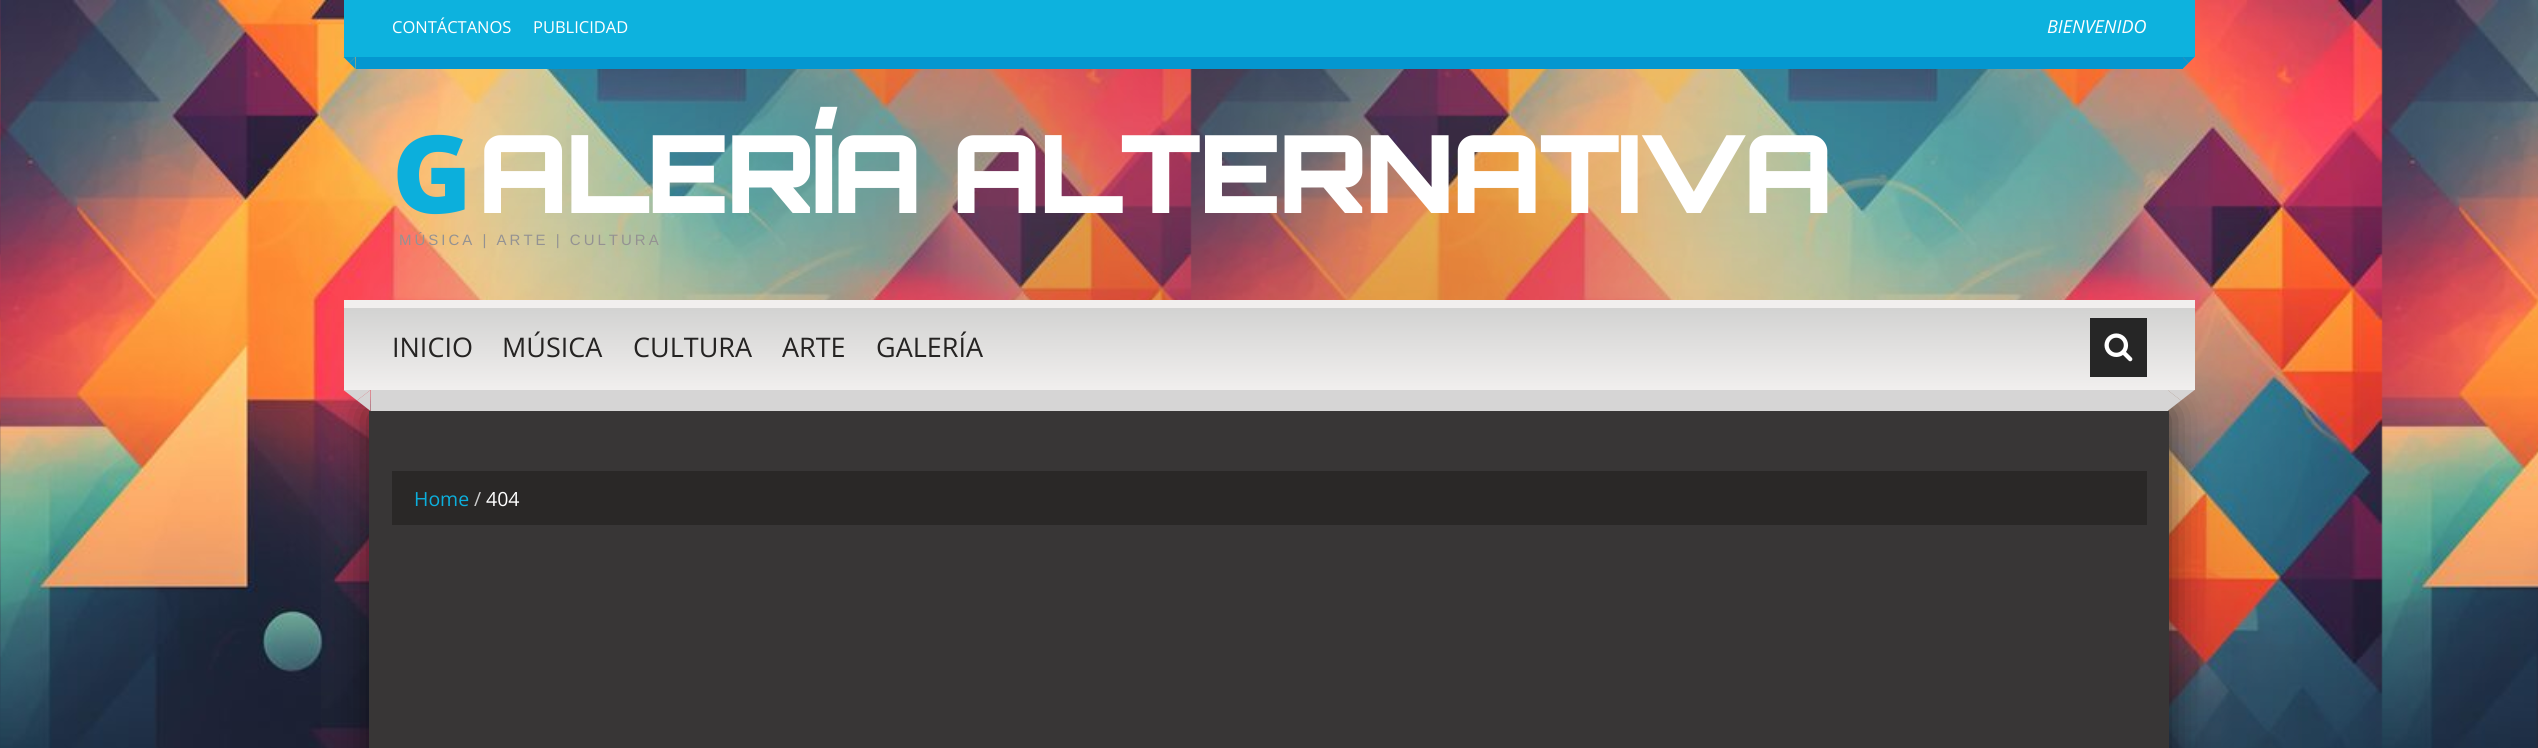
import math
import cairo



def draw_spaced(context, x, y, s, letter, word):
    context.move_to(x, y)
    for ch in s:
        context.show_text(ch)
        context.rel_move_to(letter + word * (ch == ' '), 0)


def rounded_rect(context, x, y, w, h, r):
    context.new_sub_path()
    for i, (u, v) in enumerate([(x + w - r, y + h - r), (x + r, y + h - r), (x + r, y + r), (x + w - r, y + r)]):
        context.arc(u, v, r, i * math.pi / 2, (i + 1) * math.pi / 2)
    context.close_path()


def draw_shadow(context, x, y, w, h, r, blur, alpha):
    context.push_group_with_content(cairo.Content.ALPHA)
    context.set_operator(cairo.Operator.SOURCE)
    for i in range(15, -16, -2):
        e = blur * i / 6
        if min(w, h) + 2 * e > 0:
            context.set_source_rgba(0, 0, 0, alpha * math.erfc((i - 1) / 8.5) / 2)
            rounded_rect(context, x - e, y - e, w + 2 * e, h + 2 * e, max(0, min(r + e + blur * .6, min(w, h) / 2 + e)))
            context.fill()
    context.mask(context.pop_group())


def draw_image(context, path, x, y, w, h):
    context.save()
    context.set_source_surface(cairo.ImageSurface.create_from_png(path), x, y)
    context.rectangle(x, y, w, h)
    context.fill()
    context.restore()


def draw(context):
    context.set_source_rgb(1, 1, 1)
    context.paint()
    draw_image(context, "images/1.png", 0, 0, 2538, 748)
    draw_image(context, "images/2.png", 321, 69, 1981, 679)
    context.set_source_rgb(13 / 255, 178 / 255, 222 / 255)
    context.rectangle(344, 0, 1851, 57)
    context.fill()
    context.set_source_rgb(4 / 255, 151 / 255, 208 / 255)
    context.rectangle(356, 57, 1827, 12)
    context.fill()
    context.new_path()
    context.move_to(343.5, 57)
    context.line_to(355.5, 57)
    context.line_to(349.5, 63)
    context.close_path()
    context.fill()
    context.new_path()
    context.move_to(355.5, 57)
    context.line_to(355.5, 69)
    context.line_to(349.5, 63)
    context.close_path()
    context.fill()
    context.new_path()
    context.move_to(2182.5, 57)
    context.line_to(2194.5, 57)
    context.line_to(2188.5, 63)
    context.close_path()
    context.fill()
    context.new_path()
    context.move_to(2182.5, 69)
    context.line_to(2182.5, 57)
    context.line_to(2188.5, 63)
    context.close_path()
    context.fill()
    context.set_source_rgb(0, 0, 0)
    draw_shadow(context, 369, 411, 1800, 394, 0, 19, 0.6)
    gradient = cairo.LinearGradient(1269, 307, 1269, 390)
    gradient.add_color_stop_rgba(0, 210 / 255, 210 / 255, 209 / 255, 1)
    gradient.add_color_stop_rgba(1, 241 / 255, 239 / 255, 238 / 255, 1)
    context.set_source(gradient)
    context.rectangle(344, 308, 1851, 82)
    context.fill()
    context.set_source_rgb(241 / 255, 239 / 255, 238 / 255)
    context.rectangle(344, 300, 1851, 8)
    context.fill()
    context.set_source_rgb(38 / 255, 38 / 255, 38 / 255)
    context.rectangle(2090, 318, 57, 59)
    context.fill()
    draw_image(context, "images/3.png", 2104, 333, 29, 29)
    context.set_source_rgb(214 / 255, 213 / 255, 213 / 255)
    context.rectangle(371, 390, 1797, 21)
    context.fill()
    context.new_path()
    context.move_to(343.5, 390)
    context.line_to(370.5, 390)
    context.line_to(357, 400.5)
    context.close_path()
    context.fill()
    context.new_path()
    context.move_to(370.5, 390)
    context.line_to(370.5, 411)
    context.line_to(357, 400.5)
    context.close_path()
    context.fill()
    context.new_path()
    context.move_to(2167.5, 390)
    context.line_to(2194.5, 390)
    context.line_to(2181, 400.5)
    context.close_path()
    context.fill()
    context.new_path()
    context.move_to(2167.5, 411)
    context.line_to(2167.5, 390)
    context.line_to(2181, 400.5)
    context.close_path()
    context.fill()
    context.set_source_rgb(56 / 255, 54 / 255, 54 / 255)
    context.rectangle(369, 411, 1800, 337)
    context.fill()
    context.set_source_rgb(42 / 255, 40 / 255, 39 / 255)
    context.rectangle(392, 471, 1755, 54)
    context.fill()
    context.select_font_face("Open Sans")
    context.set_font_size(16.5)
    context.set_source_rgb(1, 1, 1)
    context.move_to(392, 33)
    context.show_text("CONTÁCTANOS")
    context.move_to(533, 33)
    context.show_text("PUBLICIDAD")
    context.select_font_face("Open Sans", cairo.FontSlant.ITALIC)
    context.set_font_size(18)
    context.move_to(2047, 33)
    context.show_text("BIENVENIDO")
    context.select_font_face("Noto Sans Black")
    context.set_font_size(108)
    context.set_source_rgb(12 / 255, 175 / 255, 220 / 255)
    draw_spaced(context, 392, 213, "G", -3, 0)
    context.select_font_face("Orbitron Black")
    context.set_source_rgb(1, 1, 1)
    draw_spaced(context, 478, 213, "ALERÍA ALTERNATIVA", -3, 0)
    context.select_font_face("Liberation Sans")
    context.set_font_size(15)
    context.set_source_rgb(148 / 255, 146 / 255, 146 / 255)
    draw_spaced(context, 399, 245, "MÚSICA | ARTE | CULTURA", 3, 0)
    context.select_font_face("Open Sans")
    context.set_font_size(27)
    context.set_source_rgb(37 / 255, 35 / 255, 34 / 255)
    context.move_to(392, 357)
    context.show_text("INICIO")
    context.move_to(502, 357)
    context.show_text("MÚSICA")
    context.move_to(633, 357)
    context.show_text("CULTURA")
    context.move_to(782, 357)
    context.show_text("ARTE")
    context.move_to(876, 357)
    context.show_text("GALERÍA")
    context.set_font_size(19.5)
    context.set_source_rgb(12 / 255, 175 / 255, 220 / 255)
    context.move_to(414, 506)
    context.show_text("Home")
    context.set_source_rgb(204 / 255, 204 / 255, 204 / 255)
    context.move_to(474, 506)
    context.show_text("/")
    context.set_source_rgb(1, 1, 1)
    context.move_to(486, 506)
    context.show_text("404")


surface = cairo.ImageSurface(cairo.Format.RGB24, 2538, 748)
context = cairo.Context(surface)
options = cairo.FontOptions()
options.set_hint_metrics(cairo.HintMetrics.OFF)
options.set_hint_style(cairo.HintStyle.NONE)
context.set_font_options(options)
context.set_miter_limit(4)
draw(context)
surface.write_to_png("out.png")
